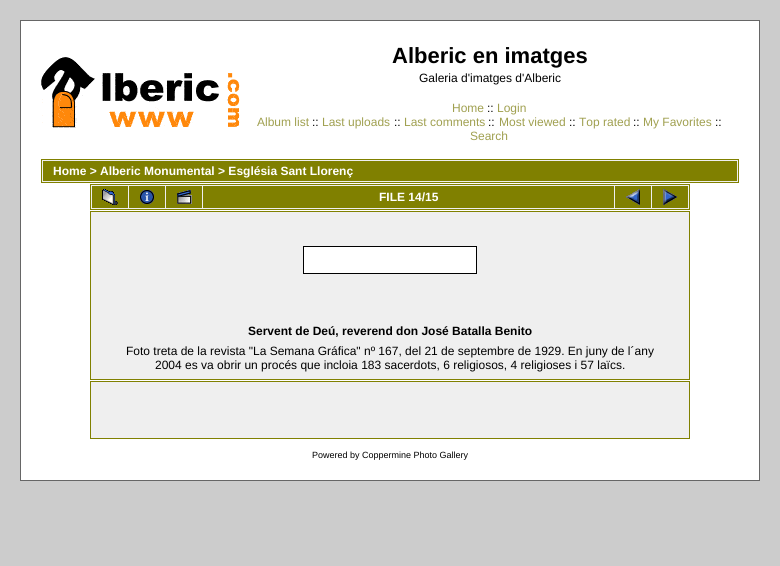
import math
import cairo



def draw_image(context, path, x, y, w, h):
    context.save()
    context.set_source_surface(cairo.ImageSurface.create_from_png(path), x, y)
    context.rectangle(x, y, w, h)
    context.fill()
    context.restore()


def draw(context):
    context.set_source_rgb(204 / 255, 204 / 255, 204 / 255)
    context.paint()
    context.set_source_rgb(1, 1, 1)
    context.rectangle(20.5, 20.5, 739, 460)
    context.fill_preserve()
    context.set_source_rgb(102 / 255, 102 / 255, 102 / 255)
    context.set_line_width(1)
    context.stroke()
    draw_image(context, "images/1.png", 41, 57, 199, 71)
    context.set_source_rgb(239 / 255, 239 / 255, 239 / 255)
    context.rectangle(41.5, 159.5, 697, 23)
    context.fill_preserve()
    context.set_source_rgb(128 / 255, 128 / 255, 0)
    context.stroke()
    context.rectangle(43, 161, 694, 20)
    context.fill()
    context.set_source_rgb(239 / 255, 239 / 255, 239 / 255)
    context.rectangle(90.5, 184.5, 599, 25)
    context.fill_preserve()
    context.set_source_rgb(128 / 255, 128 / 255, 0)
    context.stroke()
    context.rectangle(92, 186, 36, 22)
    context.fill()
    draw_image(context, "images/2.png", 102, 189, 16, 16)
    context.rectangle(129, 186, 36, 22)
    context.fill()
    draw_image(context, "images/3.png", 140, 190, 14, 14)
    context.rectangle(166, 186, 36, 22)
    context.fill()
    draw_image(context, "images/4.png", 177, 190, 15, 14)
    context.rectangle(203, 186, 411, 22)
    context.fill()
    context.rectangle(615, 186, 36, 22)
    context.fill()
    draw_image(context, "images/5.png", 626, 189, 14, 16)
    context.rectangle(652, 186, 36, 22)
    context.fill()
    draw_image(context, "images/6.png", 663, 189, 14, 16)
    context.set_source_rgb(239 / 255, 239 / 255, 239 / 255)
    context.rectangle(90.5, 211.5, 599, 168)
    context.fill_preserve()
    context.set_source_rgb(128 / 255, 128 / 255, 0)
    context.stroke()
    context.set_source_rgb(1, 1, 1)
    context.rectangle(303.5, 246.5, 173, 27)
    context.fill_preserve()
    context.set_source_rgb(0, 0, 0)
    context.stroke()
    context.set_source_rgb(239 / 255, 239 / 255, 239 / 255)
    context.rectangle(90.5, 381.5, 599, 57)
    context.fill_preserve()
    context.set_source_rgb(128 / 255, 128 / 255, 0)
    context.stroke()
    context.select_font_face("Liberation Sans", cairo.FontSlant.NORMAL, cairo.FontWeight.BOLD)
    context.set_font_size(22)
    context.set_source_rgb(0, 0, 0)
    context.move_to(392, 63)
    context.show_text("Alberic en imatges")
    context.select_font_face("Liberation Sans")
    context.set_font_size(12)
    context.move_to(419, 82)
    context.show_text("Galeria d'imatges d'Alberic")
    context.set_source_rgb(160 / 255, 160 / 255, 80 / 255)
    context.move_to(452, 112)
    context.show_text("Home")
    context.set_source_rgb(0, 0, 0)
    context.move_to(487, 112)
    context.show_text("::")
    context.set_source_rgb(160 / 255, 160 / 255, 80 / 255)
    context.move_to(497, 112)
    context.show_text("Login")
    context.move_to(257, 126)
    context.show_text("Album list")
    context.set_source_rgb(0, 0, 0)
    context.move_to(312, 126)
    context.show_text("::")
    context.set_source_rgb(160 / 255, 160 / 255, 80 / 255)
    context.move_to(322, 126)
    context.show_text("Last uploads")
    context.set_source_rgb(0, 0, 0)
    context.move_to(394, 126)
    context.show_text("::")
    context.set_source_rgb(160 / 255, 160 / 255, 80 / 255)
    context.move_to(404, 126)
    context.show_text("Last comments")
    context.set_source_rgb(0, 0, 0)
    context.move_to(488, 126)
    context.show_text("::")
    context.set_source_rgb(160 / 255, 160 / 255, 80 / 255)
    context.move_to(499, 126)
    context.show_text("Most viewed")
    context.set_source_rgb(0, 0, 0)
    context.move_to(569, 126)
    context.show_text("::")
    context.set_source_rgb(160 / 255, 160 / 255, 80 / 255)
    context.move_to(579, 126)
    context.show_text("Top rated")
    context.set_source_rgb(0, 0, 0)
    context.move_to(633, 126)
    context.show_text("::")
    context.set_source_rgb(160 / 255, 160 / 255, 80 / 255)
    context.move_to(643, 126)
    context.show_text("My Favorites")
    context.set_source_rgb(0, 0, 0)
    context.move_to(715, 126)
    context.show_text("::")
    context.set_source_rgb(160 / 255, 160 / 255, 80 / 255)
    context.move_to(470, 140)
    context.show_text("Search")
    context.select_font_face("Liberation Sans", cairo.FontSlant.NORMAL, cairo.FontWeight.BOLD)
    context.set_source_rgb(1, 1, 1)
    context.move_to(53, 175)
    context.show_text("Home > Alberic Monumental > Església Sant Llorenç")
    context.move_to(379, 201)
    context.show_text("FILE 14/15")
    context.set_source_rgb(0, 0, 0)
    context.move_to(248, 335)
    context.show_text("Servent de Deú, reverend don José Batalla Benito")
    context.select_font_face("Liberation Sans")
    context.move_to(126, 355)
    context.show_text("Foto treta de la revista \"La Semana Gráfica\" nº 167, del 21 de septembre de 1929. En juny de l´any")
    context.move_to(155, 369)
    context.show_text("2004 es va obrir un procés que incloia 183 sacerdots, 6 religiosos, 4 religioses i 57 laïcs.")
    context.set_font_size(9)
    context.move_to(312, 458)
    context.show_text("Powered by Coppermine Photo Gallery")


surface = cairo.ImageSurface(cairo.Format.RGB24, 780, 566)
context = cairo.Context(surface)
options = cairo.FontOptions()
options.set_hint_metrics(cairo.HintMetrics.OFF)
options.set_hint_style(cairo.HintStyle.NONE)
context.set_font_options(options)
context.set_miter_limit(4)
draw(context)
surface.write_to_png("out.png")
